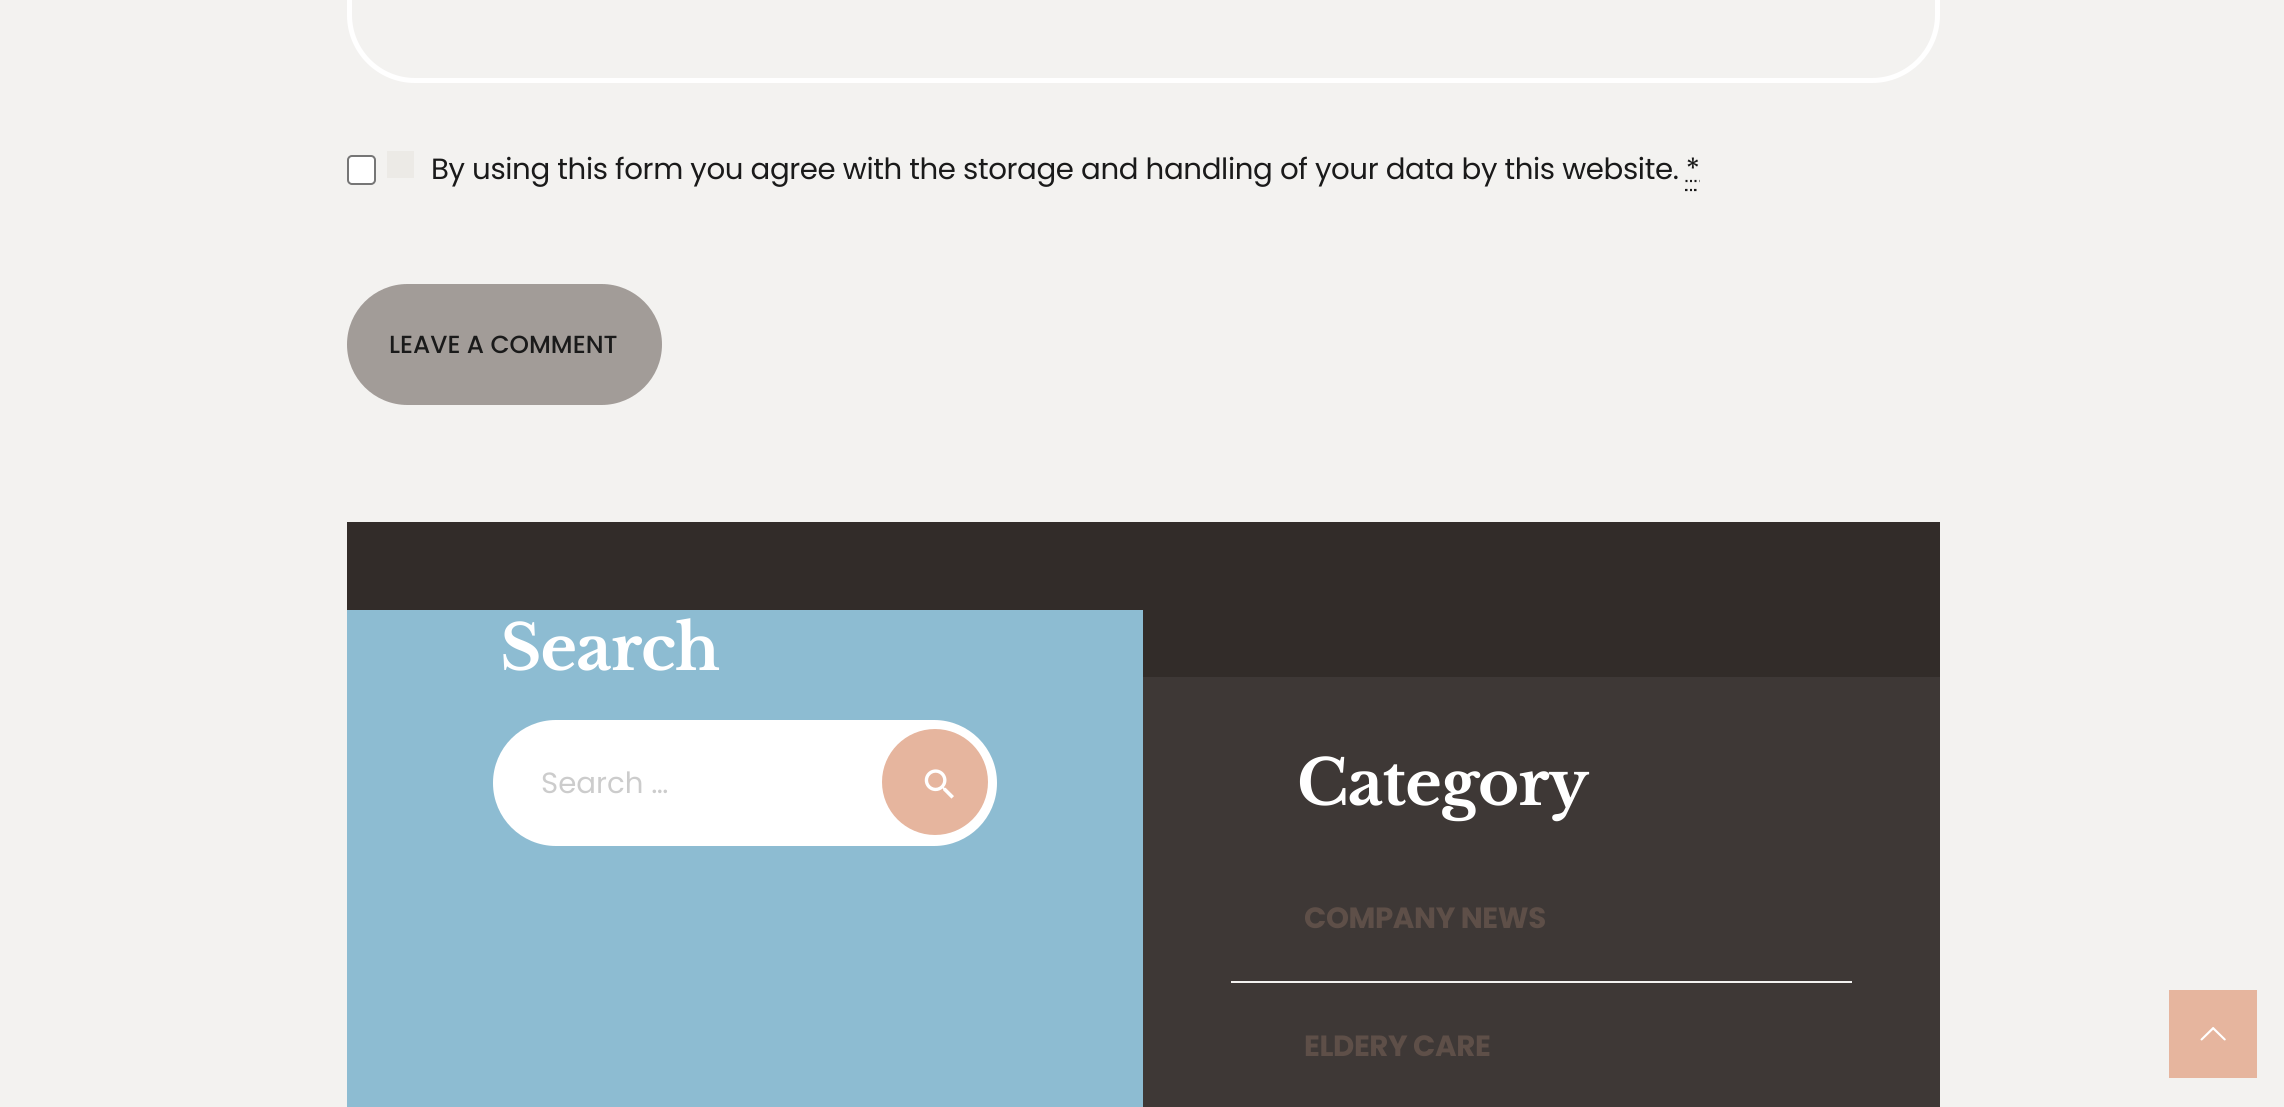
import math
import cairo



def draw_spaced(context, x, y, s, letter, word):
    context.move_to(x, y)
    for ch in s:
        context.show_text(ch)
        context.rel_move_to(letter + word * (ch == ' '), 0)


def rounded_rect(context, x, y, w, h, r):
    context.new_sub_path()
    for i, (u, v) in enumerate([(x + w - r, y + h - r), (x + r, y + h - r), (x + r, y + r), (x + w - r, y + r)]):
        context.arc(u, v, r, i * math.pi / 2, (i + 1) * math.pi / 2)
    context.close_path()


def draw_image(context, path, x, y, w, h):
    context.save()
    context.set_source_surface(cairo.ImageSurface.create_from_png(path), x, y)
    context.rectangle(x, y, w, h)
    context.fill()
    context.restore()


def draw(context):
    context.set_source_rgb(243 / 255, 242 / 255, 240 / 255)
    context.paint()
    rounded_rect(context, 349.5, -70.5, 1588, 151, 65.5)
    context.set_source_rgb(1, 1, 1)
    context.set_line_width(5)
    context.stroke()
    rounded_rect(context, 348, 156, 27, 28, 4)
    context.fill_preserve()
    context.set_source_rgb(118 / 255, 118 / 255, 118 / 255)
    context.set_line_width(2)
    context.stroke()
    context.set_source_rgb(236 / 255, 234 / 255, 230 / 255)
    context.rectangle(387, 151, 27, 27)
    context.fill()
    context.new_path()
    context.move_to(1685, 190)
    context.line_to(1687.5, 190)
    context.move_to(1690, 190)
    context.line_to(1692, 190)
    context.move_to(1694, 190)
    context.line_to(1696.5, 190)
    context.move_to(1685.5, 181)
    context.line_to(1687.5, 181)
    context.move_to(1690, 181)
    context.line_to(1692, 181)
    context.move_to(1694.5, 181)
    context.line_to(1696.5, 181)
    context.move_to(1699, 181)
    context.line_to(1699.5, 181)
    context.set_source_rgb(26 / 255, 26 / 255, 26 / 255)
    context.set_line_width(2.2)
    context.stroke()
    context.set_source_rgb(162 / 255, 156 / 255, 152 / 255)
    rounded_rect(context, 347, 284, 315, 121, 60.5)
    context.fill()
    context.set_source_rgb(50 / 255, 44 / 255, 41 / 255)
    context.rectangle(347, 522, 1593, 155)
    context.fill()
    context.set_source_rgb(141 / 255, 188 / 255, 210 / 255)
    context.rectangle(347, 610, 796, 497)
    context.fill()
    context.set_source_rgb(1, 1, 1)
    rounded_rect(context, 495.5, 722.5, 499, 121, 60.5)
    context.fill_preserve()
    context.set_line_width(5)
    context.stroke()
    context.set_source_rgb(230 / 255, 181 / 255, 158 / 255)
    context.arc(935, 782, 53, 0, 2 * math.pi)
    context.fill()
    draw_image(context, "images/1.png", 924, 769, 30, 30)
    context.set_source_rgb(62 / 255, 56 / 255, 54 / 255)
    context.rectangle(1143, 677, 797, 430)
    context.fill()
    context.set_source_rgb(243 / 255, 242 / 255, 240 / 255)
    context.rectangle(1231, 981, 621, 2)
    context.fill()
    context.set_source_rgb(230 / 255, 181 / 255, 158 / 255)
    context.rectangle(2169, 990, 88, 88)
    context.fill()
    draw_image(context, "images/2.png", 2200, 1027, 26, 14)
    context.select_font_face("Poppins")
    context.set_font_size(29.25)
    context.set_source_rgb(26 / 255, 26 / 255, 26 / 255)
    draw_spaced(context, 431, 179, "By using this form you agree with the storage and handling of your data by this website. *", -0.38, 0)
    context.select_font_face("Poppins Medium")
    context.set_font_size(24.75)
    context.move_to(389, 353)
    context.show_text("LEAVE A COMMENT")
    context.select_font_face("Libre Baskerville", cairo.FontSlant.NORMAL, cairo.FontWeight.BOLD)
    context.set_font_size(62.5)
    context.set_source_rgb(1, 1, 1)
    draw_spaced(context, 500, 670, "Search", -1, 0)
    context.select_font_face("Poppins")
    context.set_font_size(29.25)
    context.set_source_rgb(204 / 255, 204 / 255, 204 / 255)
    context.move_to(541, 793)
    context.show_text("Search …")
    context.select_font_face("Libre Baskerville", cairo.FontSlant.NORMAL, cairo.FontWeight.BOLD)
    context.set_font_size(62.5)
    context.set_source_rgb(1, 1, 1)
    draw_spaced(context, 1297, 805, "Category", -1, 0)
    context.select_font_face("Poppins", cairo.FontSlant.NORMAL, cairo.FontWeight.BOLD)
    context.set_font_size(29.25)
    context.set_source_rgb(94 / 255, 79 / 255, 72 / 255)
    draw_spaced(context, 1304, 928, "COMPANY NEWS", -0.38, 0)
    draw_spaced(context, 1304, 1056, "ELDERY CARE", -0.38, 0)


surface = cairo.ImageSurface(cairo.Format.RGB24, 2284, 1107)
context = cairo.Context(surface)
options = cairo.FontOptions()
options.set_hint_metrics(cairo.HintMetrics.OFF)
options.set_hint_style(cairo.HintStyle.NONE)
context.set_font_options(options)
context.set_miter_limit(4)
draw(context)
surface.write_to_png("out.png")
